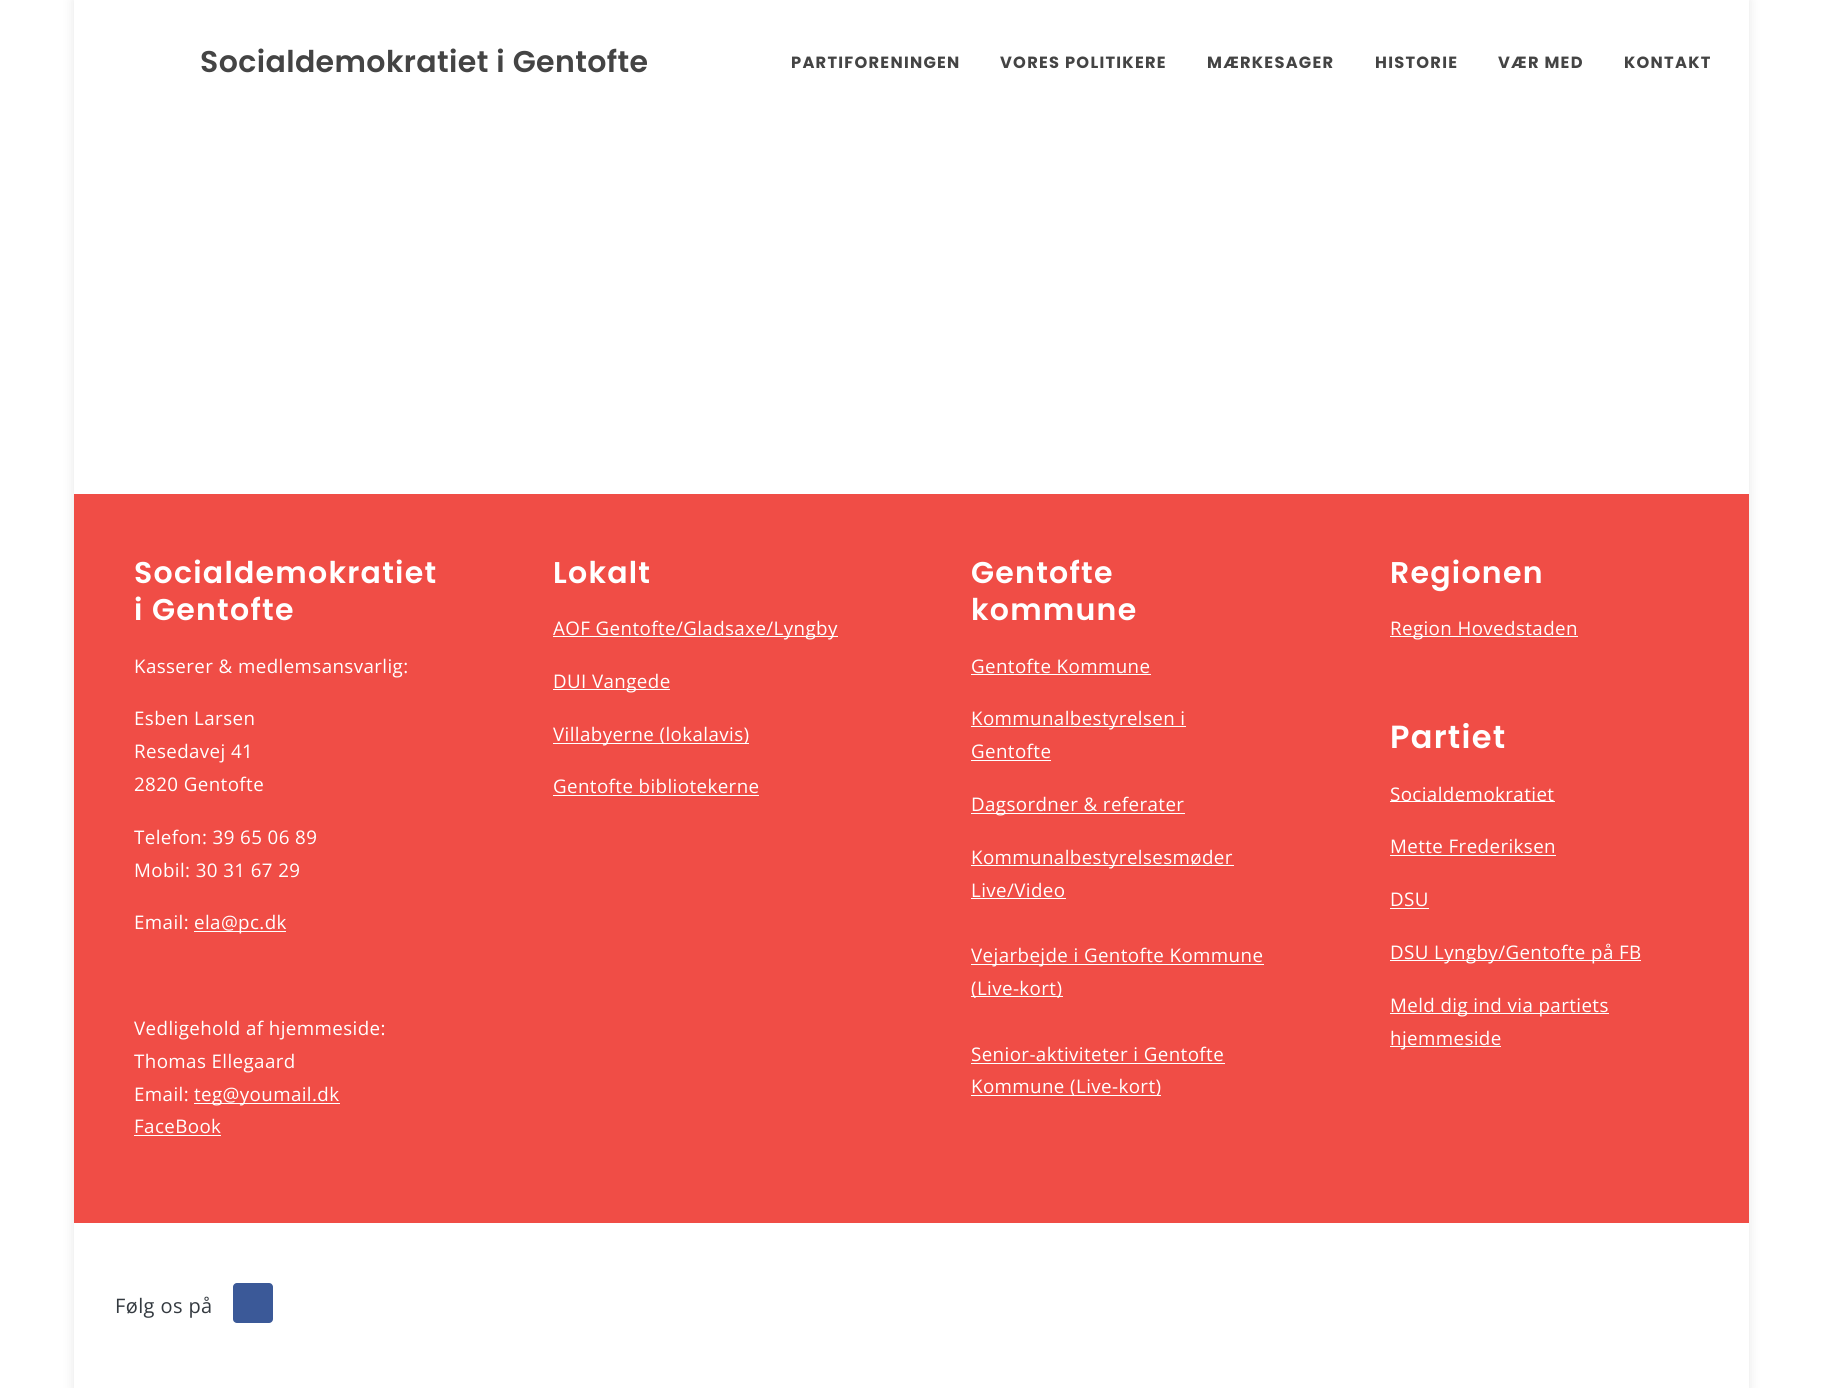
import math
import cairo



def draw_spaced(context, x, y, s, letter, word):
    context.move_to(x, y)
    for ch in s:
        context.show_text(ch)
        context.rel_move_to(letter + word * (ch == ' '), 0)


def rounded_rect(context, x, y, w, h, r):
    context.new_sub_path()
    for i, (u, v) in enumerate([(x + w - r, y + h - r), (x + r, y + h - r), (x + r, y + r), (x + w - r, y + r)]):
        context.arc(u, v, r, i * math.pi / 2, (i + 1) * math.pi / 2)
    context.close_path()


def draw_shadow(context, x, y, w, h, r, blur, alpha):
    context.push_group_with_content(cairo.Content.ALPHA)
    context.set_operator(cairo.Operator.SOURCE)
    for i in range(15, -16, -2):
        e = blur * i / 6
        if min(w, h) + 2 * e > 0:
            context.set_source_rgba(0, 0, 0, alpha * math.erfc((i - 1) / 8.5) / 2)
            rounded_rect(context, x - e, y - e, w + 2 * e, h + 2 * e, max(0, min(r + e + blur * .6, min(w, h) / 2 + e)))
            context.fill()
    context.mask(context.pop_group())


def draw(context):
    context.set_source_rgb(1, 1, 1)
    context.paint()
    context.set_source_rgb(0, 0, 0)
    draw_shadow(context, 74, 0, 1675, 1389, 0, 6, 0.1)
    context.set_source_rgb(1, 1, 1)
    context.rectangle(74, 0, 1675, 1388)
    context.fill()
    context.set_source_rgb(240 / 255, 77 / 255, 70 / 255)
    context.rectangle(74, 494, 1675, 729)
    context.fill()
    context.set_source_rgb(1, 1, 1)
    context.rectangle(194, 931, 92, 1)
    context.fill()
    context.rectangle(194, 1103, 146, 1)
    context.fill()
    context.rectangle(134, 1135, 87, 1)
    context.fill()
    context.rectangle(553, 636, 285, 1)
    context.fill()
    context.rectangle(553, 689, 117, 1)
    context.fill()
    context.rectangle(553, 743, 196, 1)
    context.fill()
    context.rectangle(553, 795, 206, 1)
    context.fill()
    context.rectangle(971, 674, 180, 1)
    context.fill()
    context.rectangle(971, 726, 215, 1)
    context.fill()
    context.rectangle(971, 760, 80, 1)
    context.fill()
    context.rectangle(971, 813, 214, 1)
    context.fill()
    context.rectangle(971, 865, 263, 1)
    context.fill()
    context.rectangle(971, 898, 95, 1)
    context.fill()
    context.rectangle(971, 964, 293, 1)
    context.fill()
    context.rectangle(971, 996, 92, 1)
    context.fill()
    context.rectangle(971, 1063, 254, 1)
    context.fill()
    context.rectangle(971, 1095, 190, 1)
    context.fill()
    context.rectangle(1390, 636, 188, 1)
    context.fill()
    context.rectangle(1390, 801, 165, 1)
    context.fill()
    context.rectangle(1390, 855, 166, 1)
    context.fill()
    context.rectangle(1390, 908, 39, 1)
    context.fill()
    context.rectangle(1390, 960, 251, 1)
    context.fill()
    context.rectangle(1390, 1013, 219, 1)
    context.fill()
    context.rectangle(1390, 1046, 111, 1)
    context.fill()
    context.set_source_rgb(59 / 255, 89 / 255, 152 / 255)
    rounded_rect(context, 233, 1283, 40, 40, 4)
    context.fill()
    context.select_font_face("Poppins SemiBold")
    context.set_font_size(30)
    context.set_source_rgb(68 / 255, 68 / 255, 68 / 255)
    draw_spaced(context, 200, 72, "Socialdemokratiet i Gentofte", 0.4, 0)
    context.select_font_face("Poppins", cairo.FontSlant.NORMAL, cairo.FontWeight.BOLD)
    context.set_font_size(16.25)
    draw_spaced(context, 791, 68, "PARTIFORENINGEN", 1.25, 0)
    draw_spaced(context, 1000, 68, "VORES POLITIKERE", 1.25, 0)
    draw_spaced(context, 1207, 68, "MÆRKESAGER", 1.25, 0)
    draw_spaced(context, 1375, 68, "HISTORIE", 1.25, 0)
    draw_spaced(context, 1498, 68, "VÆR MED", 1.25, 0)
    draw_spaced(context, 1624, 68, "KONTAKT", 1.25, 0)
    context.select_font_face("Poppins SemiBold")
    context.set_font_size(30)
    context.set_source_rgb(1, 1, 1)
    draw_spaced(context, 134, 583, "Socialdemokratiet", 1.25, 0)
    draw_spaced(context, 134, 620, "i Gentofte", 1.25, 0)
    context.select_font_face("Open Sans")
    context.set_font_size(18.75)
    draw_spaced(context, 134, 673, "Kasserer & medlemsansvarlig:", 0.4, 0)
    draw_spaced(context, 134, 725, "Esben Larsen", 0.4, 0)
    draw_spaced(context, 134, 758, "Resedavej 41", 0.4, 0)
    draw_spaced(context, 134, 791, "2820 Gentofte", 0.4, 0)
    draw_spaced(context, 134, 844, "Telefon: 39 65 06 89", 0.4, 0)
    draw_spaced(context, 134, 877, "Mobil: 30 31 67 29", 0.4, 0)
    draw_spaced(context, 134, 929, "Email:", 0.4, 0)
    draw_spaced(context, 194, 929, "ela@pc.dk", 0.4, 0)
    draw_spaced(context, 134, 1035, "Vedligehold af hjemmeside:", 0.4, 0)
    draw_spaced(context, 134, 1068, "Thomas Ellegaard", 0.4, 0)
    draw_spaced(context, 134, 1101, "Email:", 0.4, 0)
    draw_spaced(context, 194, 1101, "teg@youmail.dk", 0.4, 0)
    draw_spaced(context, 134, 1133, "FaceBook", 0.4, 0)
    context.select_font_face("Poppins SemiBold")
    context.set_font_size(30)
    draw_spaced(context, 553, 583, "Lokalt", 1.25, 0)
    context.select_font_face("Open Sans")
    context.set_font_size(18.75)
    draw_spaced(context, 553, 635, "AOF Gentofte/Gladsaxe/Lyngby", 0.4, 0)
    draw_spaced(context, 553, 688, "DUI Vangede", 0.4, 0)
    draw_spaced(context, 553, 741, "Villabyerne (lokalavis)", 0.4, 0)
    draw_spaced(context, 553, 793, "Gentofte bibliotekerne", 0.4, 0)
    context.select_font_face("Poppins SemiBold")
    context.set_font_size(30)
    draw_spaced(context, 971, 583, "Gentofte", 1.25, 0)
    draw_spaced(context, 971, 620, "kommune", 1.25, 0)
    context.select_font_face("Open Sans")
    context.set_font_size(18.75)
    draw_spaced(context, 971, 673, "Gentofte Kommune", 0.4, 0)
    draw_spaced(context, 971, 725, "Kommunalbestyrelsen i", 0.4, 0)
    draw_spaced(context, 971, 758, "Gentofte", 0.4, 0)
    draw_spaced(context, 971, 811, "Dagsordner & referater", 0.4, 0)
    draw_spaced(context, 971, 864, "Kommunalbestyrelsesmøder", 0.4, 0)
    draw_spaced(context, 971, 897, "Live/Video", 0.4, 0)
    draw_spaced(context, 971, 962, "Vejarbejde i Gentofte Kommune", 0.4, 0)
    draw_spaced(context, 971, 995, "(Live-kort)", 0.4, 0)
    draw_spaced(context, 971, 1061, "Senior-aktiviteter i Gentofte", 0.4, 0)
    draw_spaced(context, 971, 1093, "Kommune (Live-kort)", 0.4, 0)
    context.select_font_face("Poppins SemiBold")
    context.set_font_size(30)
    draw_spaced(context, 1390, 583, "Regionen", 1.25, 0)
    context.select_font_face("Open Sans")
    context.set_font_size(18.75)
    draw_spaced(context, 1390, 635, "Region Hovedstaden", 0.4, 0)
    context.select_font_face("Poppins SemiBold")
    context.set_font_size(32)
    draw_spaced(context, 1390, 748, "Partiet", 1.25, 0)
    context.select_font_face("Open Sans")
    context.set_font_size(18.75)
    draw_spaced(context, 1390, 801, "Socialdemokratiet", 0.4, 0)
    draw_spaced(context, 1390, 853, "Mette Frederiksen", 0.4, 0)
    draw_spaced(context, 1390, 906, "DSU", 0.4, 0)
    draw_spaced(context, 1390, 959, "DSU Lyngby/Gentofte på FB", 0.4, 0)
    draw_spaced(context, 1390, 1012, "Meld dig ind via partiets", 0.4, 0)
    draw_spaced(context, 1390, 1045, "hjemmeside", 0.4, 0)
    context.set_font_size(20)
    context.set_source_rgb(52 / 255, 58 / 255, 64 / 255)
    draw_spaced(context, 115, 1313, "Følg os på", 0.4, 0)


surface = cairo.ImageSurface(cairo.Format.RGB24, 1822, 1388)
context = cairo.Context(surface)
options = cairo.FontOptions()
options.set_hint_metrics(cairo.HintMetrics.OFF)
options.set_hint_style(cairo.HintStyle.NONE)
context.set_font_options(options)
context.set_miter_limit(4)
draw(context)
surface.write_to_png("out.png")
